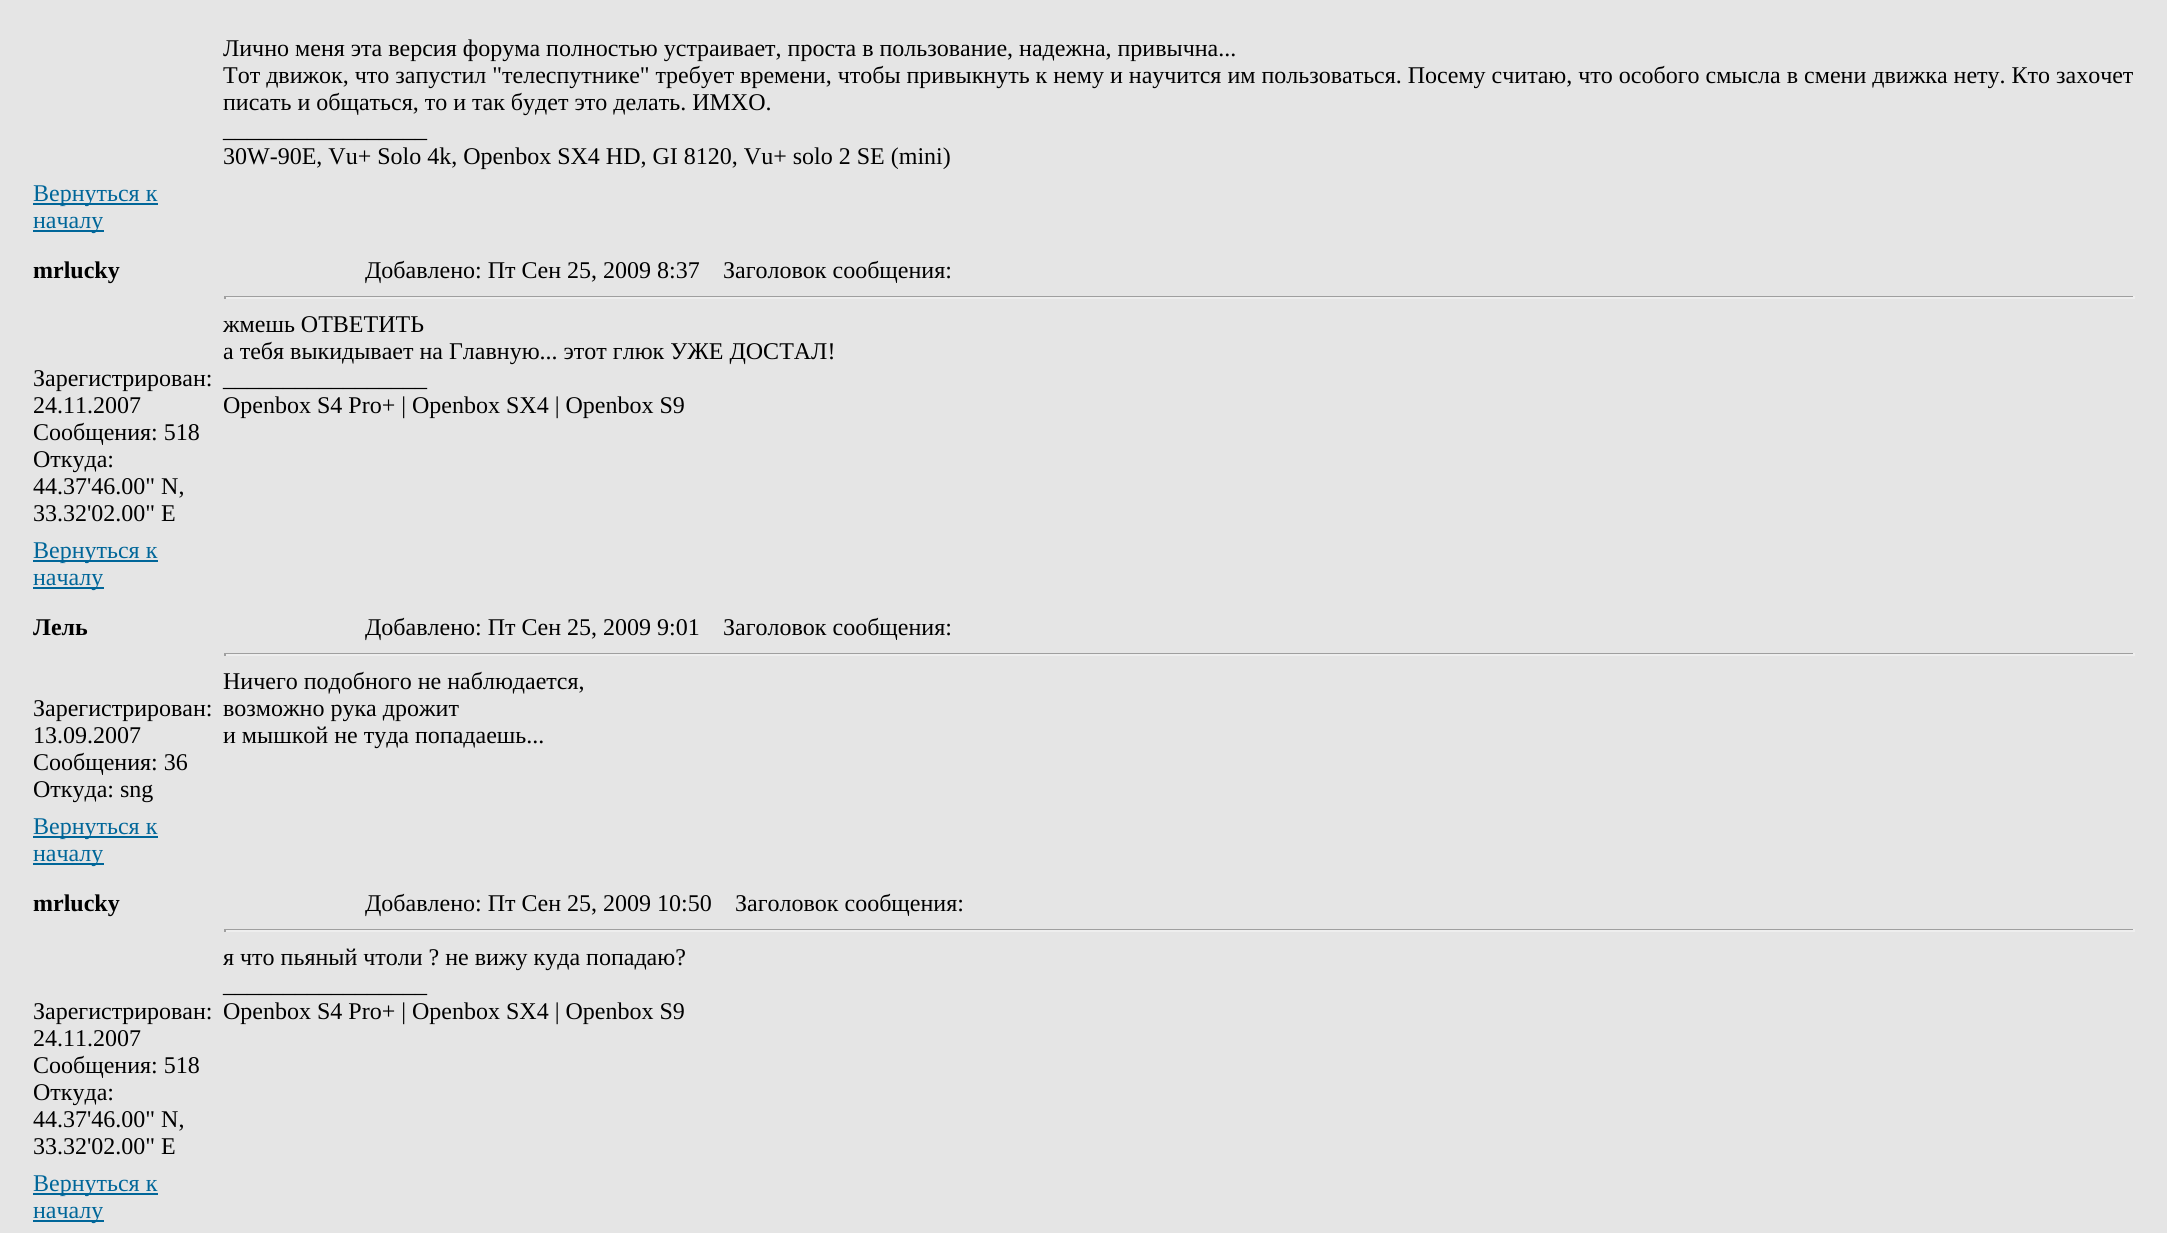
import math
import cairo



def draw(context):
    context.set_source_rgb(229 / 255, 229 / 255, 229 / 255)
    context.paint()
    context.set_source_rgb(0, 102 / 255, 153 / 255)
    context.rectangle(33, 203, 125, 2)
    context.fill()
    context.rectangle(33, 230, 71, 2)
    context.fill()
    context.set_source_rgb(159 / 255, 159 / 255, 159 / 255)
    context.rectangle(224, 296, 1911, 1)
    context.fill()
    context.set_source_rgb(238 / 255, 238 / 255, 238 / 255)
    context.rectangle(2133, 296, 2, 3)
    context.fill()
    context.rectangle(224, 297, 1911, 2)
    context.fill()
    context.set_source_rgb(159 / 255, 159 / 255, 159 / 255)
    context.rectangle(224, 296, 2, 3)
    context.fill()
    context.set_source_rgb(0, 102 / 255, 153 / 255)
    context.rectangle(33, 560, 125, 2)
    context.fill()
    context.rectangle(33, 587, 71, 2)
    context.fill()
    context.set_source_rgb(159 / 255, 159 / 255, 159 / 255)
    context.rectangle(224, 653, 1911, 1)
    context.fill()
    context.set_source_rgb(238 / 255, 238 / 255, 238 / 255)
    context.rectangle(2133, 653, 2, 3)
    context.fill()
    context.rectangle(224, 654, 1911, 2)
    context.fill()
    context.set_source_rgb(159 / 255, 159 / 255, 159 / 255)
    context.rectangle(224, 653, 2, 3)
    context.fill()
    context.set_source_rgb(0, 102 / 255, 153 / 255)
    context.rectangle(33, 836, 125, 2)
    context.fill()
    context.rectangle(33, 863, 71, 2)
    context.fill()
    context.set_source_rgb(159 / 255, 159 / 255, 159 / 255)
    context.rectangle(224, 929, 1911, 1)
    context.fill()
    context.set_source_rgb(238 / 255, 238 / 255, 238 / 255)
    context.rectangle(2133, 929, 2, 3)
    context.fill()
    context.rectangle(224, 930, 1911, 2)
    context.fill()
    context.set_source_rgb(159 / 255, 159 / 255, 159 / 255)
    context.rectangle(224, 929, 2, 3)
    context.fill()
    context.set_source_rgb(0, 102 / 255, 153 / 255)
    context.rectangle(33, 1193, 125, 2)
    context.fill()
    context.rectangle(33, 1220, 71, 2)
    context.fill()
    context.select_font_face("Liberation Serif")
    context.set_font_size(24)
    context.set_source_rgb(0, 0, 0)
    context.move_to(223, 56)
    context.show_text("Лично меня эта версия форума полностью устраивает, проста в пользование, надежна, привычна...")
    context.move_to(223, 83)
    context.show_text("Тот движок, что запустил \"телеспутнике\" требует времени, чтобы привыкнуть к нему и научится им пользоваться. Посему считаю, что особого смысла в смени движка нету. Кто захочет")
    context.move_to(223, 110)
    context.show_text("писать и общаться, то и так будет это делать. ИМХО.")
    context.move_to(223, 137)
    context.show_text("_________________")
    context.move_to(223, 164)
    context.show_text("30W-90E, Vu+ Solo 4k, Openbox SX4 HD, GI 8120, Vu+ solo 2 SE (mini)")
    context.set_source_rgb(0, 102 / 255, 153 / 255)
    context.move_to(33, 201)
    context.show_text("Вернуться к")
    context.move_to(33, 228)
    context.show_text("началу")
    context.select_font_face("Liberation Serif", cairo.FontSlant.NORMAL, cairo.FontWeight.BOLD)
    context.set_source_rgb(0, 0, 0)
    context.move_to(33, 278)
    context.show_text("mrlucky")
    context.select_font_face("Liberation Serif")
    context.move_to(33, 386)
    context.show_text("Зарегистрирован:")
    context.move_to(33, 413)
    context.show_text("24.11.2007")
    context.move_to(33, 440)
    context.show_text("Сообщения: 518")
    context.move_to(33, 467)
    context.show_text("Откуда:")
    context.move_to(33, 494)
    context.show_text("44.37'46.00\" N,")
    context.move_to(33, 521)
    context.show_text("33.32'02.00\" E")
    context.move_to(365, 278)
    context.show_text("Добавлено: Пт Сен 25, 2009 8:37")
    context.move_to(723, 278)
    context.show_text("Заголовок сообщения:")
    context.move_to(223, 332)
    context.show_text("жмешь ОТВЕТИТЬ")
    context.move_to(223, 359)
    context.show_text("а тебя выкидывает на Главную... этот глюк УЖЕ ДОСТАЛ!")
    context.move_to(223, 386)
    context.show_text("_________________")
    context.move_to(223, 413)
    context.show_text("Openbox S4 Pro+ | Openbox SX4 | Openbox S9")
    context.set_source_rgb(0, 102 / 255, 153 / 255)
    context.move_to(33, 558)
    context.show_text("Вернуться к")
    context.move_to(33, 585)
    context.show_text("началу")
    context.select_font_face("Liberation Serif", cairo.FontSlant.NORMAL, cairo.FontWeight.BOLD)
    context.set_source_rgb(0, 0, 0)
    context.move_to(33, 635)
    context.show_text("Лель")
    context.select_font_face("Liberation Serif")
    context.move_to(33, 716)
    context.show_text("Зарегистрирован:")
    context.move_to(33, 743)
    context.show_text("13.09.2007")
    context.move_to(33, 770)
    context.show_text("Сообщения: 36")
    context.move_to(33, 797)
    context.show_text("Откуда: sng")
    context.move_to(365, 635)
    context.show_text("Добавлено: Пт Сен 25, 2009 9:01")
    context.move_to(723, 635)
    context.show_text("Заголовок сообщения:")
    context.move_to(223, 689)
    context.show_text("Ничего подобного не наблюдается,")
    context.move_to(223, 716)
    context.show_text("возможно рука дрожит")
    context.move_to(223, 743)
    context.show_text("и мышкой не туда попадаешь...")
    context.set_source_rgb(0, 102 / 255, 153 / 255)
    context.move_to(33, 834)
    context.show_text("Вернуться к")
    context.move_to(33, 861)
    context.show_text("началу")
    context.select_font_face("Liberation Serif", cairo.FontSlant.NORMAL, cairo.FontWeight.BOLD)
    context.set_source_rgb(0, 0, 0)
    context.move_to(33, 911)
    context.show_text("mrlucky")
    context.select_font_face("Liberation Serif")
    context.move_to(33, 1019)
    context.show_text("Зарегистрирован:")
    context.move_to(33, 1046)
    context.show_text("24.11.2007")
    context.move_to(33, 1073)
    context.show_text("Сообщения: 518")
    context.move_to(33, 1100)
    context.show_text("Откуда:")
    context.move_to(33, 1127)
    context.show_text("44.37'46.00\" N,")
    context.move_to(33, 1154)
    context.show_text("33.32'02.00\" E")
    context.move_to(365, 911)
    context.show_text("Добавлено: Пт Сен 25, 2009 10:50")
    context.move_to(735, 911)
    context.show_text("Заголовок сообщения:")
    context.move_to(223, 965)
    context.show_text("я что пьяный чтоли ? не вижу куда попадаю?")
    context.move_to(223, 992)
    context.show_text("_________________")
    context.move_to(223, 1019)
    context.show_text("Openbox S4 Pro+ | Openbox SX4 | Openbox S9")
    context.set_source_rgb(0, 102 / 255, 153 / 255)
    context.move_to(33, 1191)
    context.show_text("Вернуться к")
    context.move_to(33, 1218)
    context.show_text("началу")


surface = cairo.ImageSurface(cairo.Format.RGB24, 2167, 1233)
context = cairo.Context(surface)
options = cairo.FontOptions()
options.set_hint_metrics(cairo.HintMetrics.OFF)
options.set_hint_style(cairo.HintStyle.NONE)
context.set_font_options(options)
context.set_miter_limit(4)
draw(context)
surface.write_to_png("out.png")
